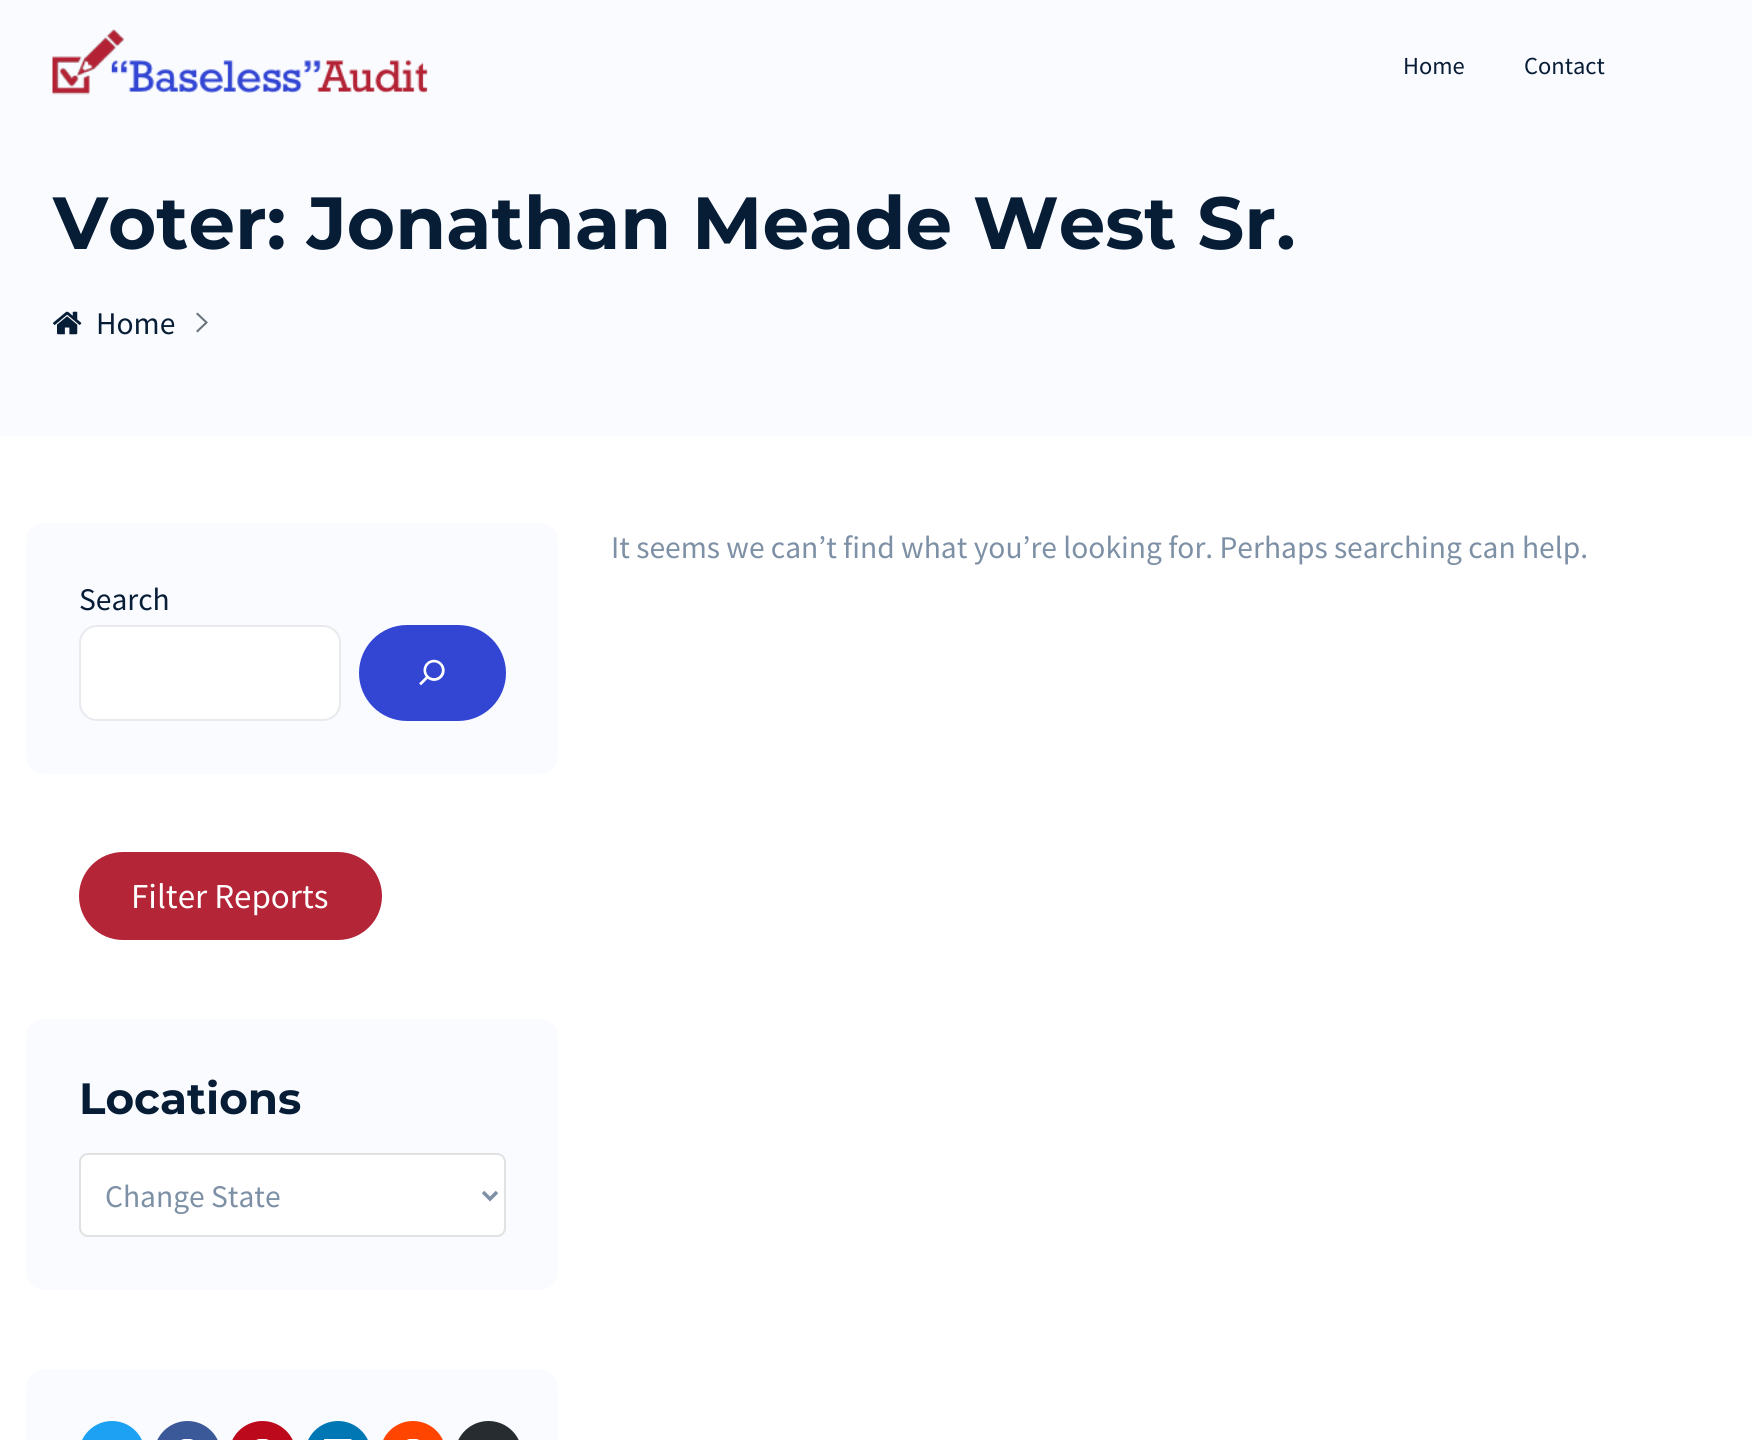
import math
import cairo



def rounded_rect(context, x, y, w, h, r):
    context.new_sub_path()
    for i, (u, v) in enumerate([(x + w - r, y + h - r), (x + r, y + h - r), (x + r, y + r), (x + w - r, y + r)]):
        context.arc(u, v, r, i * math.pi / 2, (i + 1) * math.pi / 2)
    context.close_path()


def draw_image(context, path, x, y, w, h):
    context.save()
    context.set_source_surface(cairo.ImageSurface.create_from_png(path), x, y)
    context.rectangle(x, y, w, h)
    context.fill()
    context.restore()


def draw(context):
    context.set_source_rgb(1, 1, 1)
    context.paint()
    context.set_source_rgb(249 / 255, 251 / 255, 1)
    context.rectangle(0, 0, 1752, 436)
    context.fill()
    draw_image(context, "images/1.png", 52, 29, 376, 66)
    draw_image(context, "images/2.png", 53, 311, 29, 24)
    context.set_source_rgb(108 / 255, 117 / 255, 125 / 255)
    context.new_path()
    context.move_to(196, 314)
    context.line_to(197.5, 312.5)
    context.line_to(208, 322.5)
    context.line_to(197.5, 332.5)
    context.line_to(196, 331)
    context.line_to(205, 322.5)
    context.close_path()
    context.fill()
    context.set_source_rgb(249 / 255, 251 / 255, 1)
    rounded_rect(context, 26, 523, 532, 251, 18)
    context.fill()
    context.set_source_rgb(1, 1, 1)
    rounded_rect(context, 80, 626, 260, 94, 17)
    context.fill_preserve()
    context.set_source_rgb(233 / 255, 234 / 255, 237 / 255)
    context.stroke()
    context.set_source_rgb(51 / 255, 70 / 255, 211 / 255)
    rounded_rect(context, 359, 625, 147, 96, 48)
    context.fill()
    draw_image(context, "images/3.png", 419, 659, 26, 27)
    context.set_source_rgb(179 / 255, 37 / 255, 55 / 255)
    rounded_rect(context, 79, 852, 303, 88, 44)
    context.fill()
    context.set_source_rgb(249 / 255, 251 / 255, 1)
    rounded_rect(context, 26, 1019, 532, 271, 18)
    context.fill()
    context.set_source_rgb(1, 1, 1)
    rounded_rect(context, 80, 1154, 425, 82, 8)
    context.fill_preserve()
    context.set_source_rgb(224 / 255, 225 / 255, 225 / 255)
    context.stroke()
    context.new_path()
    context.move_to(483, 1192)
    context.line_to(490, 1199)
    context.line_to(497, 1192)
    context.set_source_rgb(125 / 255, 144 / 255, 166 / 255)
    context.set_line_width(3.5)
    context.stroke()
    context.set_source_rgb(249 / 255, 251 / 255, 1)
    rounded_rect(context, 26, 1369, 532, 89, 18)
    context.fill()
    context.set_source_rgb(28 / 255, 161 / 255, 243 / 255)
    rounded_rect(context, 79, 1421, 66, 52, 33)
    context.fill()
    context.set_source_rgb(59 / 255, 89 / 255, 153 / 255)
    rounded_rect(context, 154, 1421, 67, 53, 33.5)
    context.fill()
    draw_image(context, "images/4.png", 181, 1439, 12, 1)
    context.set_source_rgb(189 / 255, 9 / 255, 28 / 255)
    rounded_rect(context, 229, 1421, 67, 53, 33.5)
    context.fill()
    draw_image(context, "images/5.png", 256, 1439, 13, 1)
    context.set_source_rgb(0, 119 / 255, 181 / 255)
    rounded_rect(context, 305, 1421, 66, 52, 33)
    context.fill()
    draw_image(context, "images/6.png", 324, 1439, 28, 1)
    context.set_source_rgb(1, 69 / 255, 0)
    rounded_rect(context, 380, 1421, 66, 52, 33)
    context.fill()
    draw_image(context, "images/7.png", 407, 1439, 12, 1)
    context.set_source_rgb(39 / 255, 44 / 255, 48 / 255)
    rounded_rect(context, 455, 1421, 67, 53, 33.5)
    context.fill()
    context.select_font_face("Source Sans Pro")
    context.set_font_size(24.5)
    context.set_source_rgb(7 / 255, 28 / 255, 53 / 255)
    context.move_to(1403, 74)
    context.show_text("Home")
    context.move_to(1524, 74)
    context.show_text("Contact")
    context.select_font_face("Montserrat", cairo.FontSlant.NORMAL, cairo.FontWeight.BOLD)
    context.set_font_size(73.75)
    context.move_to(53, 249)
    context.show_text("Voter: Jonathan Meade West Sr.")
    context.select_font_face("Source Sans Pro")
    context.set_font_size(31.5)
    context.move_to(96, 334)
    context.show_text("Home")
    context.set_source_rgb(125 / 255, 144 / 255, 166 / 255)
    context.move_to(611, 558)
    context.show_text("It seems we can’t find what you’re looking for. Perhaps searching can help.")
    context.set_source_rgb(7 / 255, 28 / 255, 53 / 255)
    context.move_to(79, 610)
    context.show_text("Search")
    context.set_font_size(35)
    context.set_source_rgb(1, 1, 1)
    context.move_to(131, 908)
    context.show_text("Filter Reports")
    context.select_font_face("Montserrat", cairo.FontSlant.NORMAL, cairo.FontWeight.BOLD)
    context.set_font_size(43.75)
    context.set_source_rgb(7 / 255, 28 / 255, 53 / 255)
    context.move_to(79, 1114)
    context.show_text("Locations")
    context.select_font_face("Source Sans Pro")
    context.set_font_size(31.5)
    context.set_source_rgb(125 / 255, 144 / 255, 166 / 255)
    context.move_to(105, 1207)
    context.show_text("Change State")


surface = cairo.ImageSurface(cairo.Format.RGB24, 1752, 1440)
context = cairo.Context(surface)
options = cairo.FontOptions()
options.set_hint_metrics(cairo.HintMetrics.OFF)
options.set_hint_style(cairo.HintStyle.NONE)
context.set_font_options(options)
context.set_miter_limit(4)
draw(context)
surface.write_to_png("out.png")
